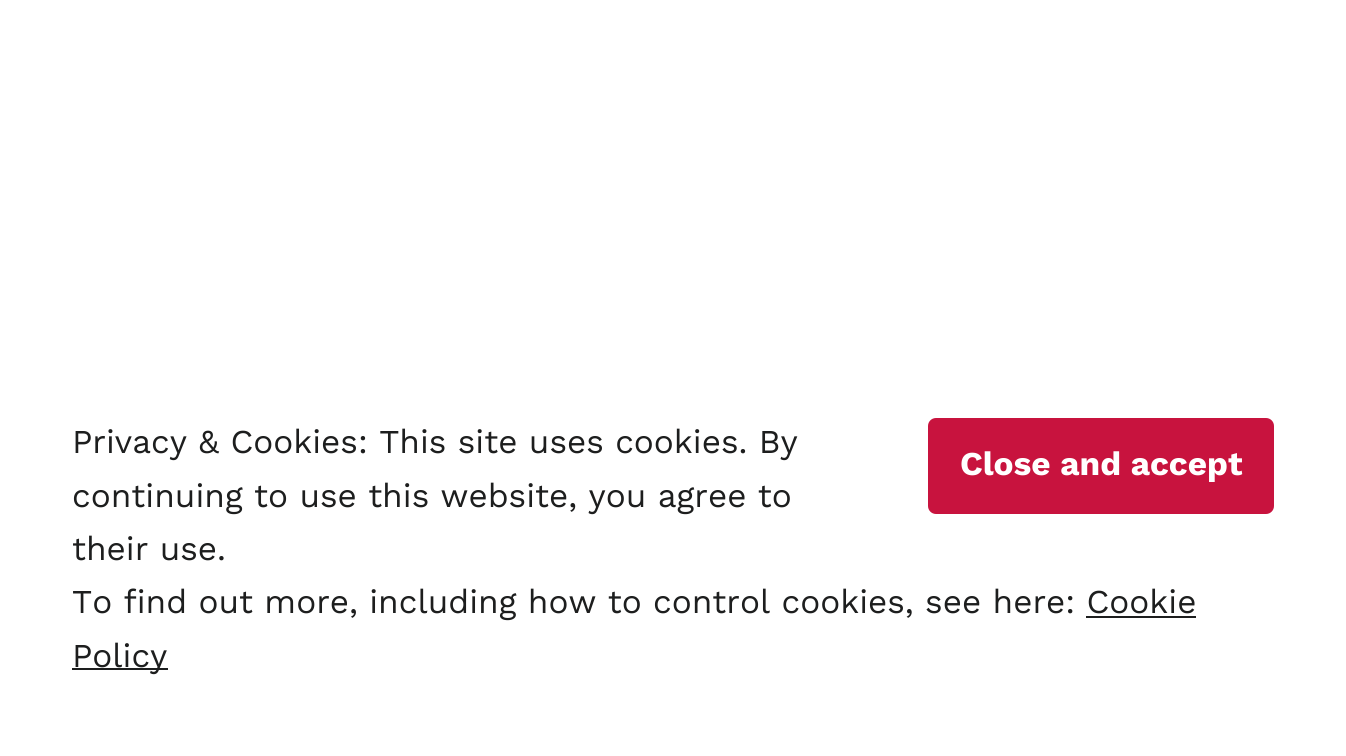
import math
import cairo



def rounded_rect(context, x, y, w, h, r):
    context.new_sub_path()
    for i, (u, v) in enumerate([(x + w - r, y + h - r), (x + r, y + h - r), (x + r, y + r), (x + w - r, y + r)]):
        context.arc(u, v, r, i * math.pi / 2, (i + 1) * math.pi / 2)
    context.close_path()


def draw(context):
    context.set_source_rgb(1, 1, 1)
    context.paint()
    context.set_source_rgb(200 / 255, 19 / 255, 62 / 255)
    rounded_rect(context, 928, 418, 346, 96, 8)
    context.fill()
    context.set_source_rgb(29 / 255, 30 / 255, 30 / 255)
    context.rectangle(1086, 616, 110, 2)
    context.fill()
    context.rectangle(72, 668, 96, 2)
    context.fill()
    context.select_font_face("Work Sans")
    context.set_font_size(33.35)
    context.move_to(72, 453)
    context.show_text("Privacy & Cookies: This site uses cookies. By")
    context.select_font_face("Work Sans", cairo.FontSlant.NORMAL, cairo.FontWeight.BOLD)
    context.set_source_rgb(1, 1, 1)
    context.move_to(960, 475)
    context.show_text("Close and accept")
    context.select_font_face("Work Sans")
    context.set_source_rgb(29 / 255, 30 / 255, 30 / 255)
    context.move_to(72, 507)
    context.show_text("continuing to use this website, you agree to")
    context.move_to(72, 560)
    context.show_text("their use.")
    context.move_to(72, 613)
    context.show_text("To find out more, including how to control cookies, see here: Cookie")
    context.move_to(72, 667)
    context.show_text("Policy")


surface = cairo.ImageSurface(cairo.Format.RGB24, 1346, 756)
context = cairo.Context(surface)
options = cairo.FontOptions()
options.set_hint_metrics(cairo.HintMetrics.OFF)
options.set_hint_style(cairo.HintStyle.NONE)
context.set_font_options(options)
context.set_miter_limit(4)
draw(context)
surface.write_to_png("out.png")
